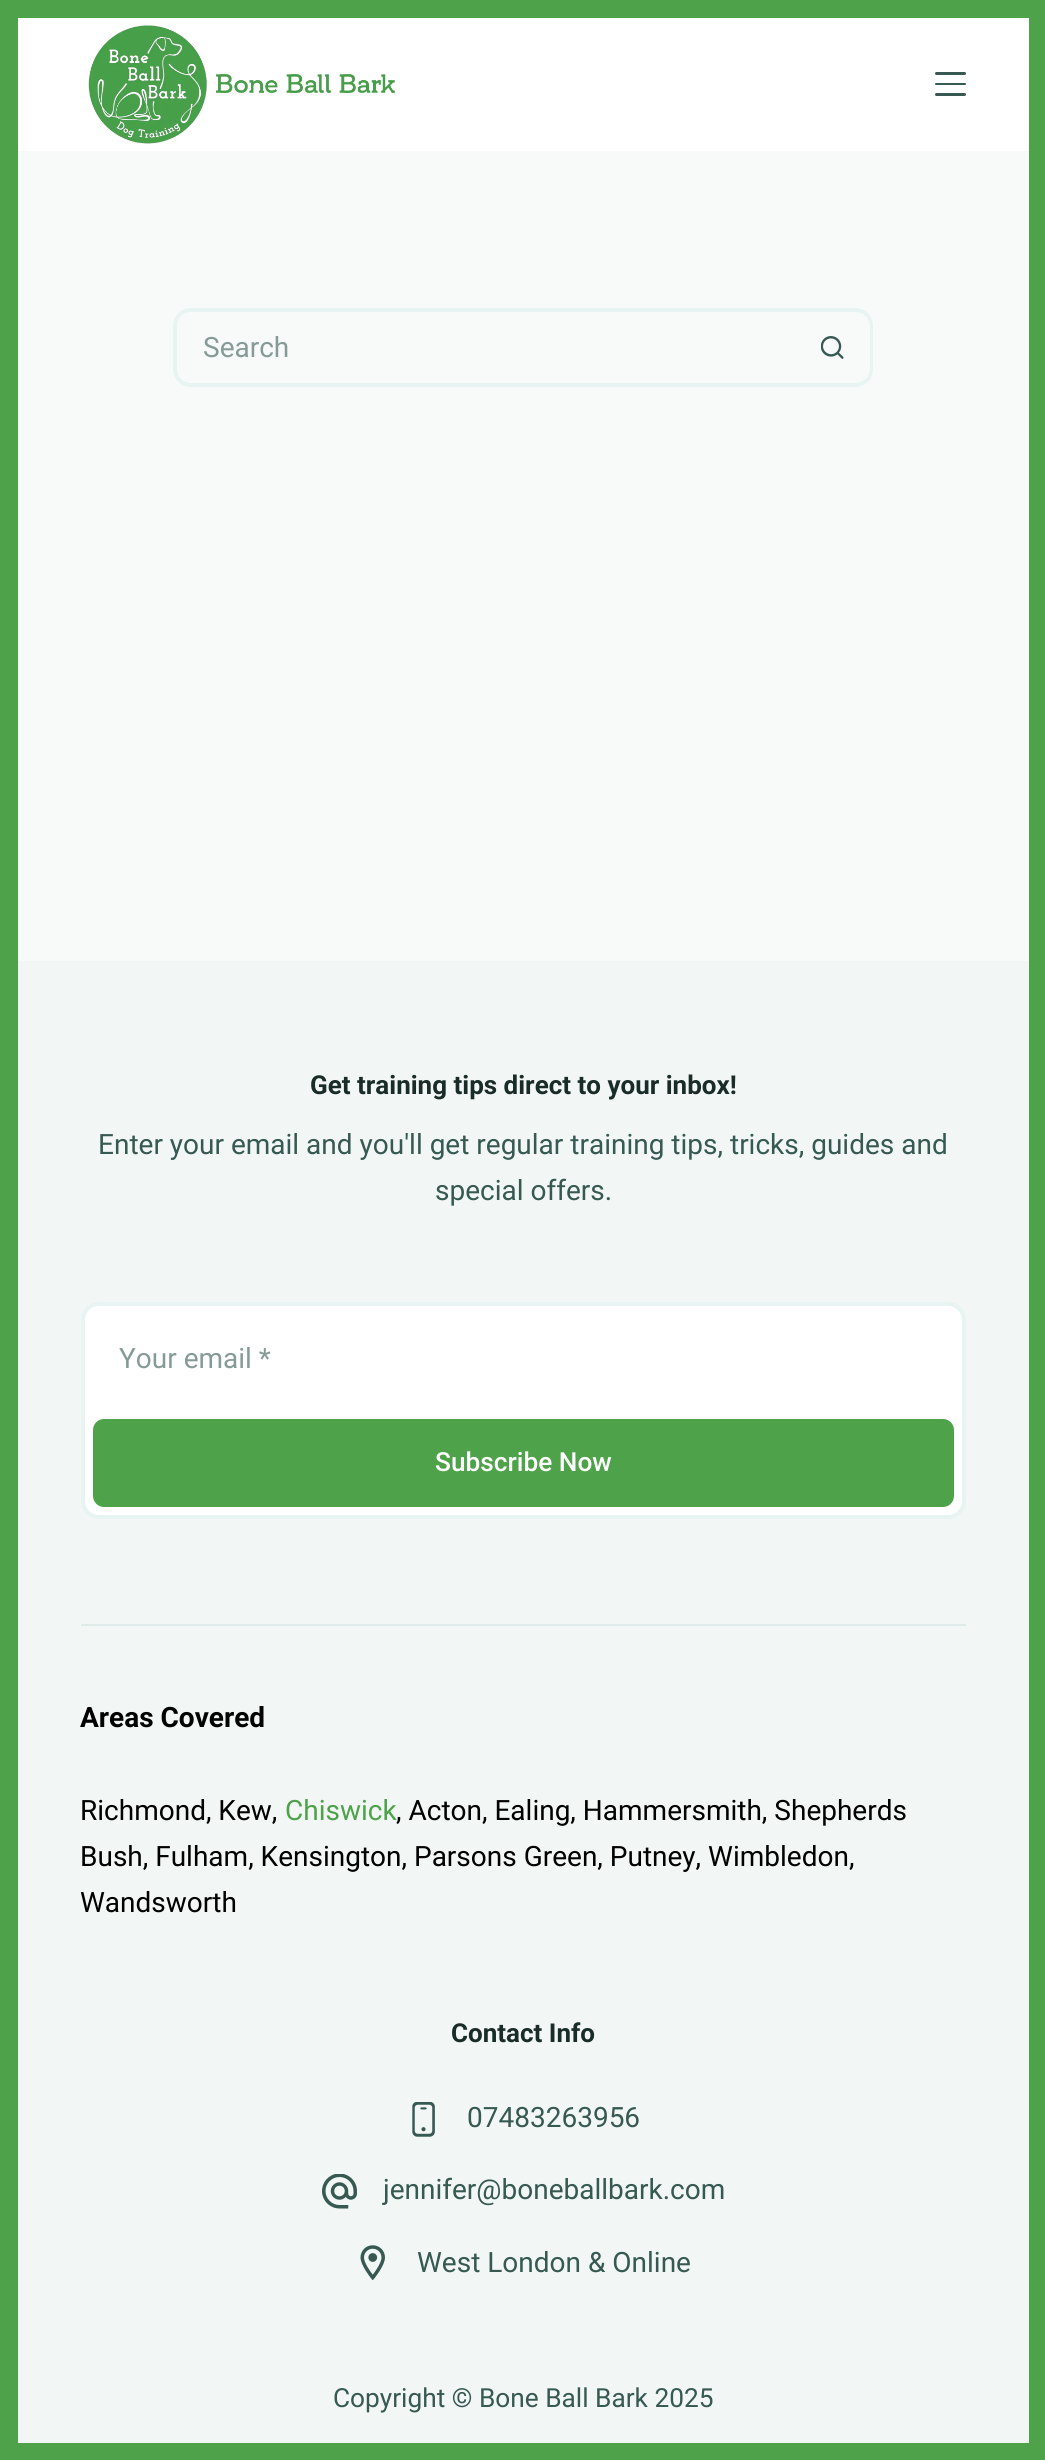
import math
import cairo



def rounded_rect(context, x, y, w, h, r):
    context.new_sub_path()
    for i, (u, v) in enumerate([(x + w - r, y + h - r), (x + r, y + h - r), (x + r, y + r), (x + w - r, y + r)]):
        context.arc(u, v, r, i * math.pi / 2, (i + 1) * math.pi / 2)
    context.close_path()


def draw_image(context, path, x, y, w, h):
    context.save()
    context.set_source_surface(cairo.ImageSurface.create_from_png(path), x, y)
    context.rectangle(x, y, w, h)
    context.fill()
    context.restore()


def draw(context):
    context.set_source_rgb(248 / 255, 250 / 255, 250 / 255)
    context.paint()
    context.rectangle(9, 9, 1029, 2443)
    context.set_source_rgb(78 / 255, 162 / 255, 73 / 255)
    context.set_line_width(18)
    context.stroke()
    context.set_source_rgb(1, 1, 1)
    context.rectangle(18, 18, 1011, 133)
    context.fill()
    draw_image(context, "images/1.png", 88, 25, 307, 119)
    context.set_source_rgb(54 / 255, 89 / 255, 81 / 255)
    rounded_rect(context, 935, 72, 31, 3, 1.5)
    context.fill()
    rounded_rect(context, 935, 83, 31, 2, 1)
    context.fill()
    rounded_rect(context, 935, 93, 31, 3, 1.5)
    context.fill()
    context.set_source_rgb(231 / 255, 244 / 255, 241 / 255)
    context.set_fill_rule(cairo.FillRule.EVEN_ODD)
    context.new_path()
    context.move_to(191, 308)
    context.line_to(794, 308)
    context.line_to(794, 387)
    context.line_to(191, 387)
    context.curve_to(181, 387, 173, 379, 173, 369)
    context.line_to(173, 326)
    context.curve_to(173, 316, 181, 308, 191, 308)
    context.close_path()
    context.move_to(191, 312)
    context.line_to(794, 312)
    context.line_to(794, 383)
    context.line_to(191, 383)
    context.curve_to(183, 383, 177, 377, 177, 369)
    context.line_to(177, 326)
    context.curve_to(177, 318, 183, 312, 191, 312)
    context.close_path()
    context.fill()
    context.new_path()
    context.move_to(794, 308)
    context.line_to(856, 308)
    context.curve_to(865, 308, 873, 316, 873, 326)
    context.line_to(873, 369)
    context.curve_to(873, 379, 865, 387, 856, 387)
    context.line_to(794, 387)
    context.close_path()
    context.move_to(794, 312)
    context.line_to(856, 312)
    context.curve_to(863, 312, 870, 318, 870, 326)
    context.line_to(870, 369)
    context.curve_to(870, 377, 863, 383, 856, 383)
    context.line_to(794, 383)
    context.close_path()
    context.fill()
    draw_image(context, "images/2.png", 821, 336, 23, 23)
    context.new_path()
    context.move_to(824.5, 359.5)
    context.curve_to(818.5, 356, 816.5, 348, 820, 341.5)
    context.set_source_rgb(248 / 255, 250 / 255, 250 / 255)
    context.set_line_width(2.6)
    context.set_line_cap(cairo.LineCap.ROUND)
    context.stroke()
    context.set_source_rgb(242 / 255, 247 / 255, 246 / 255)
    context.rectangle(18, 961, 1011, 1482)
    context.fill()
    context.set_source_rgb(222 / 255, 235 / 255, 232 / 255)
    context.rectangle(81, 1624, 885, 2)
    context.fill()
    context.set_source_rgb(1, 1, 1)
    rounded_rect(context, 83, 1304, 881, 213, 16)
    context.fill_preserve()
    context.set_source_rgb(231 / 255, 244 / 255, 241 / 255)
    context.set_line_width(4)
    context.set_line_cap(cairo.LineCap.BUTT)
    context.stroke()
    context.set_source_rgb(78 / 255, 162 / 255, 73 / 255)
    rounded_rect(context, 93, 1419, 861, 88, 11)
    context.fill()
    draw_image(context, "images/3.png", 412, 2102, 23, 35)
    draw_image(context, "images/4.png", 322, 2174, 35, 35)
    draw_image(context, "images/5.png", 360, 2245, 25, 35)
    context.select_font_face("Roboto")
    context.set_font_size(28)
    context.set_source_rgb(134 / 255, 155 / 255, 151 / 255)
    context.move_to(203, 357)
    context.show_text("Search")
    context.select_font_face("Roboto", cairo.FontSlant.NORMAL, cairo.FontWeight.BOLD)
    context.set_font_size(26)
    context.set_source_rgb(25 / 255, 44 / 255, 39 / 255)
    context.move_to(310, 1094)
    context.show_text("Get training tips direct to your inbox!")
    context.select_font_face("Roboto")
    context.set_font_size(28)
    context.set_source_rgb(54 / 255, 89 / 255, 81 / 255)
    context.move_to(98, 1154)
    context.show_text("Enter your email and you'll get regular training tips, tricks, guides and")
    context.move_to(435, 1200)
    context.show_text("special offers.")
    context.set_source_rgb(134 / 255, 155 / 255, 151 / 255)
    context.move_to(119, 1368)
    context.show_text("Your email *")
    context.select_font_face("Roboto Medium")
    context.set_font_size(26.25)
    context.set_source_rgb(1, 1, 1)
    context.move_to(435, 1471)
    context.show_text("Subscribe Now")
    context.select_font_face("Roboto", cairo.FontSlant.NORMAL, cairo.FontWeight.BOLD)
    context.set_font_size(28)
    context.set_source_rgb(0, 0, 0)
    context.move_to(80, 1727)
    context.show_text("Areas Covered")
    context.select_font_face("Roboto")
    context.move_to(80, 1820)
    context.show_text("Richmond, Kew,")
    context.set_source_rgb(78 / 255, 162 / 255, 73 / 255)
    context.move_to(285, 1820)
    context.show_text("Chiswick")
    context.set_source_rgb(0, 0, 0)
    context.move_to(396, 1820)
    context.show_text(", Acton, Ealing, Hammersmith, Shepherds")
    context.move_to(80, 1866)
    context.show_text("Bush, Fulham, Kensington, Parsons Green, Putney, Wimbledon,")
    context.move_to(80, 1912)
    context.show_text("Wandsworth")
    context.select_font_face("Roboto", cairo.FontSlant.NORMAL, cairo.FontWeight.BOLD)
    context.set_font_size(26)
    context.set_source_rgb(25 / 255, 44 / 255, 39 / 255)
    context.move_to(451, 2042)
    context.show_text("Contact Info")
    context.select_font_face("Roboto")
    context.set_font_size(28)
    context.set_source_rgb(54 / 255, 89 / 255, 81 / 255)
    context.move_to(467, 2127)
    context.show_text("07483263956")
    context.move_to(383, 2199)
    context.show_text("jennifer@boneballbark.com")
    context.move_to(417, 2272)
    context.show_text("West London & Online")
    context.set_font_size(26.25)
    context.move_to(333, 2407)
    context.show_text("Copyright © Bone Ball Bark 2025")


surface = cairo.ImageSurface(cairo.Format.RGB24, 1045, 2460)
context = cairo.Context(surface)
options = cairo.FontOptions()
options.set_hint_metrics(cairo.HintMetrics.OFF)
options.set_hint_style(cairo.HintStyle.NONE)
context.set_font_options(options)
context.set_miter_limit(4)
draw(context)
surface.write_to_png("out.png")
